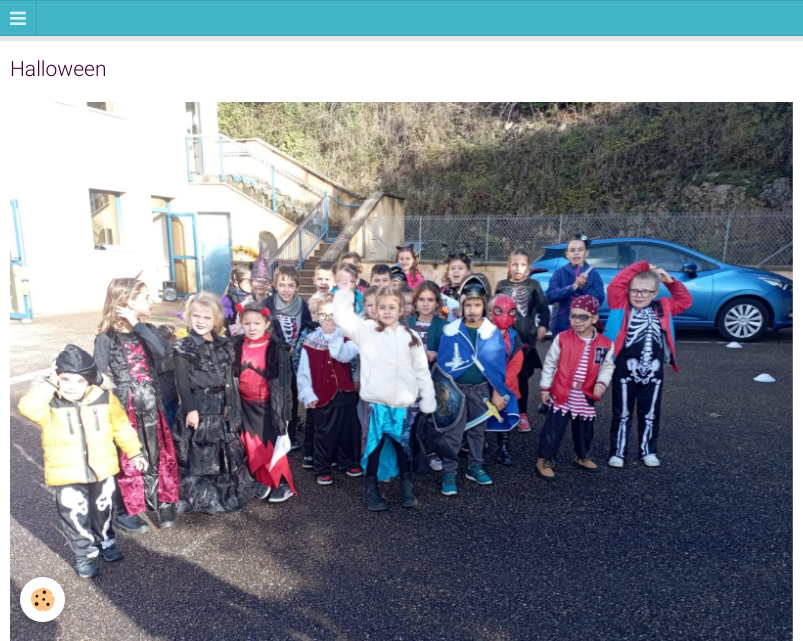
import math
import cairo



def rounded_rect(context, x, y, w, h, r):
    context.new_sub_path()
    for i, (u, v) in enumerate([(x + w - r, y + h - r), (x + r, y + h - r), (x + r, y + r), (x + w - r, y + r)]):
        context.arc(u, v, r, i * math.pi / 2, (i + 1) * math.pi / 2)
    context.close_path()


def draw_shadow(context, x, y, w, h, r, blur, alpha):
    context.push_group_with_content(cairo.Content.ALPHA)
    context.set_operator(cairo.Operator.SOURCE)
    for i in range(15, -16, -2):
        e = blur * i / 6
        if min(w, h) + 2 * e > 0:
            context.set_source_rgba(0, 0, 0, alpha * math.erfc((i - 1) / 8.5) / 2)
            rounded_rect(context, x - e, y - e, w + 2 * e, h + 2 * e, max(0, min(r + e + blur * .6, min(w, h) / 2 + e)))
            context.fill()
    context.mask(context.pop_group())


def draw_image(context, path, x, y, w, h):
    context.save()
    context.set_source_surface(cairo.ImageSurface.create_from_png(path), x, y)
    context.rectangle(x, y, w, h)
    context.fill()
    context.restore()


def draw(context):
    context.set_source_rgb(1, 1, 1)
    context.paint()
    context.set_source_rgb(230 / 255, 230 / 255, 230 / 255)
    context.rectangle(0, 36, 803, 5)
    context.fill()
    context.set_source_rgb(65 / 255, 180 / 255, 198 / 255)
    context.rectangle(0, 1, 803, 34)
    context.fill()
    context.set_source_rgb(59 / 255, 162 / 255, 178 / 255)
    context.rectangle(0, 0, 803, 1)
    context.fill()
    context.rectangle(0, 35, 803, 1)
    context.fill()
    context.new_path()
    context.move_to(37, 1)
    context.line_to(37, 35)
    context.line_to(36, 34)
    context.line_to(36, 2)
    context.close_path()
    context.fill()
    draw_image(context, "images/1.png", 10, 11, 16, 14)
    draw_image(context, "images/2.png", 10, 102, 783, 539)
    context.set_source_rgb(0, 0, 0)
    draw_shadow(context, 20, 580, 45, 45, 22.5, 5, 0.24)
    context.set_source_rgb(1, 1, 1)
    context.arc(42.5, 599.5, 22.5, 0, 2 * math.pi)
    context.fill()
    draw_image(context, "images/3.png", 30, 587, 25, 25)
    context.select_font_face("Roboto Light")
    context.set_font_size(21)
    context.set_source_rgb(63 / 255, 0, 56 / 255)
    context.move_to(10, 76)
    context.show_text("Halloween")


surface = cairo.ImageSurface(cairo.Format.RGB24, 803, 641)
context = cairo.Context(surface)
options = cairo.FontOptions()
options.set_hint_metrics(cairo.HintMetrics.OFF)
options.set_hint_style(cairo.HintStyle.NONE)
context.set_font_options(options)
context.set_miter_limit(4)
draw(context)
surface.write_to_png("out.png")
